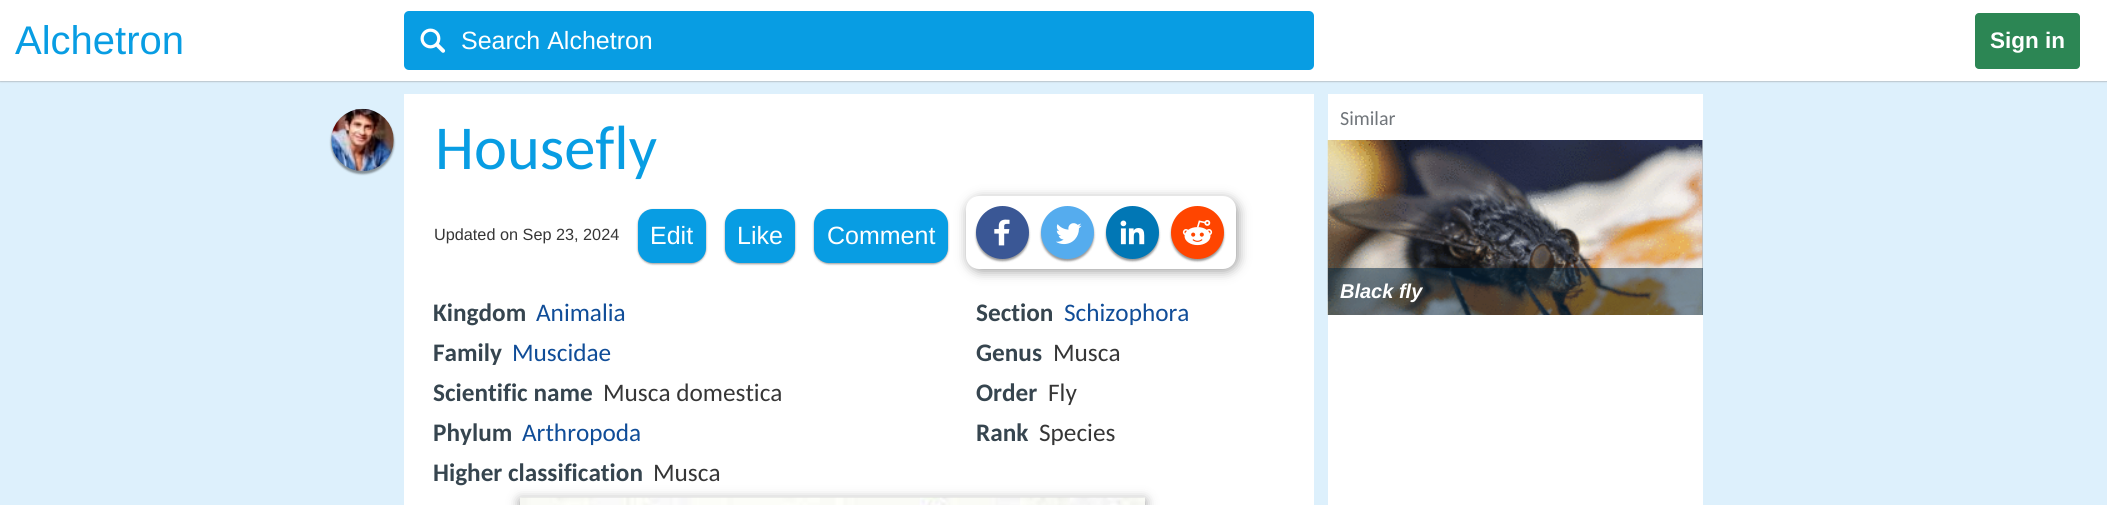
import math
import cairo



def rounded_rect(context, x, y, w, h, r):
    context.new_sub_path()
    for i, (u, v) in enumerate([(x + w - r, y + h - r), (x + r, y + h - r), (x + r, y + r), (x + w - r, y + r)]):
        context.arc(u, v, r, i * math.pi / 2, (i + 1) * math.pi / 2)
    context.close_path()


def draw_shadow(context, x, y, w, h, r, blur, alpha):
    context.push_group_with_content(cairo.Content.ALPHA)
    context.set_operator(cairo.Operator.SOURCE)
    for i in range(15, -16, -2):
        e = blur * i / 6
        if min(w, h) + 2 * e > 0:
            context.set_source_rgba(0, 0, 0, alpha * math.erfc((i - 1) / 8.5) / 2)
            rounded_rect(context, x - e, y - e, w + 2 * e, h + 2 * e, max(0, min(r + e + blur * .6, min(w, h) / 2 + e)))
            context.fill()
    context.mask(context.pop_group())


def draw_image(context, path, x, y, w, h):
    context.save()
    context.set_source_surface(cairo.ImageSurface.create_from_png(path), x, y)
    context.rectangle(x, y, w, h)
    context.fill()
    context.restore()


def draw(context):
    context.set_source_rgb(221 / 255, 240 / 255, 252 / 255)
    context.paint()
    context.set_source_rgb(136 / 255, 136 / 255, 136 / 255)
    draw_shadow(context, 0, 0, 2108, 81, 0, 1, 1)
    context.set_source_rgb(1, 1, 1)
    context.rectangle(0, 0, 2107, 81)
    context.fill()
    context.set_source_rgb(8 / 255, 157 / 255, 227 / 255)
    rounded_rect(context, 404, 11, 910, 59, 5)
    context.fill()
    draw_image(context, "images/1.png", 420, 28, 26, 25)
    context.set_source_rgb(44 / 255, 134 / 255, 84 / 255)
    rounded_rect(context, 1975, 13, 105, 56, 4)
    context.fill()
    context.set_source_rgb(1, 1, 1)
    context.rectangle(404, 94, 910, 411)
    context.fill()
    context.set_source_rgb(0, 0, 0)
    draw_shadow(context, 331, 111, 63, 63, 31.5, 1, 0.4)
    draw_image(context, "images/2.png", 331, 108, 63, 63)
    draw_shadow(context, 638, 210, 68, 54, 15, 1, 0.4)
    context.set_source_rgb(8 / 255, 157 / 255, 227 / 255)
    rounded_rect(context, 638, 209, 68, 54, 15)
    context.fill()
    context.set_source_rgb(0, 0, 0)
    draw_shadow(context, 725, 210, 70, 54, 15, 1, 0.4)
    context.set_source_rgb(8 / 255, 157 / 255, 227 / 255)
    rounded_rect(context, 725, 209, 70, 54, 15)
    context.fill()
    context.set_source_rgb(0, 0, 0)
    draw_shadow(context, 814, 210, 134, 54, 15, 1, 0.4)
    context.set_source_rgb(8 / 255, 157 / 255, 227 / 255)
    rounded_rect(context, 814, 209, 134, 54, 15)
    context.fill()
    context.set_source_rgb(0, 0, 0)
    draw_shadow(context, 968, 199, 270, 72, 13, 6, 0.4)
    context.set_source_rgb(1, 1, 1)
    rounded_rect(context, 966, 196, 270, 73, 13)
    context.fill()
    context.set_source_rgb(0, 0, 0)
    draw_shadow(context, 976, 209, 53, 52, 26, 1, 0.4)
    context.set_source_rgb(58 / 255, 87 / 255, 149 / 255)
    context.arc(1002.5, 232.5, 22.5, 0, 2 * math.pi)
    context.fill_preserve()
    context.set_line_width(8)
    context.stroke()
    draw_image(context, "images/3.png", 994, 219, 16, 27)
    context.set_source_rgb(0, 0, 0)
    draw_shadow(context, 1041, 209, 53, 52, 26, 1, 0.4)
    context.set_source_rgb(85 / 255, 172 / 255, 238 / 255)
    context.arc(1067.5, 232.5, 22.5, 0, 2 * math.pi)
    context.fill_preserve()
    context.stroke()
    draw_image(context, "images/4.png", 1056, 223, 26, 22)
    context.set_source_rgb(0, 0, 0)
    draw_shadow(context, 1106, 209, 53, 52, 26, 1, 0.4)
    context.set_source_rgb(1 / 255, 119 / 255, 181 / 255)
    context.arc(1132.5, 232.5, 22.5, 0, 2 * math.pi)
    context.fill_preserve()
    context.stroke()
    draw_image(context, "images/5.png", 1120, 220, 25, 25)
    context.set_source_rgb(0, 0, 0)
    draw_shadow(context, 1171, 209, 53, 52, 26, 1, 0.4)
    context.set_source_rgb(1, 69 / 255, 0)
    context.arc(1197.5, 232.5, 22.5, 0, 2 * math.pi)
    context.fill_preserve()
    context.stroke()
    draw_image(context, "images/6.png", 1182, 220, 31, 26)
    context.set_source_rgb(0, 0, 0)
    draw_shadow(context, 520, 500, 625, 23, 0, 6, 0.4)
    draw_image(context, "images/7.png", 520, 497, 625, 8)
    context.set_source_rgb(1, 1, 1)
    context.rectangle(1328, 94, 375, 411)
    context.fill()
    context.set_source_rgb(179 / 255, 189 / 255, 197 / 255)
    context.rectangle(1702, 140, 1, 175)
    context.fill()
    draw_image(context, "images/8.png", 1327, 140, 376, 175)
    context.set_source_rgba(0, 36 / 255, 63 / 255, 0.5)
    context.rectangle(1328, 268, 375, 47)
    context.fill()
    context.select_font_face("Liberation Sans")
    context.set_font_size(40)
    context.set_source_rgb(8 / 255, 157 / 255, 227 / 255)
    context.move_to(15, 54)
    context.show_text("Alchetron")
    context.set_font_size(25)
    context.set_source_rgb(1, 1, 1)
    context.move_to(461, 49)
    context.show_text("Search Alchetron")
    context.select_font_face("Liberation Sans", cairo.FontSlant.NORMAL, cairo.FontWeight.BOLD)
    context.set_font_size(22.5)
    context.move_to(1990, 48)
    context.show_text("Sign in")
    context.select_font_face("Carlito")
    context.set_font_size(62.5)
    context.set_source_rgb(8 / 255, 157 / 255, 227 / 255)
    context.move_to(435, 169)
    context.show_text("Housefly")
    context.select_font_face("Liberation Sans")
    context.set_font_size(16.25)
    context.set_source_rgb(54 / 255, 54 / 255, 54 / 255)
    context.move_to(434, 240)
    context.show_text("Updated on Sep 23, 2024")
    context.set_font_size(25)
    context.set_source_rgb(1, 1, 1)
    context.move_to(650, 244)
    context.show_text("Edit")
    context.move_to(737, 244)
    context.show_text("Like")
    context.move_to(827, 244)
    context.show_text("Comment")
    context.select_font_face("Carlito", cairo.FontSlant.NORMAL, cairo.FontWeight.BOLD)
    context.set_font_size(25.25)
    context.set_source_rgb(54 / 255, 69 / 255, 79 / 255)
    context.move_to(433, 321)
    context.show_text("Kingdom")
    context.select_font_face("Carlito")
    context.set_source_rgb(16 / 255, 77 / 255, 152 / 255)
    context.move_to(536, 321)
    context.show_text("Animalia")
    context.select_font_face("Carlito", cairo.FontSlant.NORMAL, cairo.FontWeight.BOLD)
    context.set_source_rgb(54 / 255, 69 / 255, 79 / 255)
    context.move_to(433, 361)
    context.show_text("Family")
    context.select_font_face("Carlito")
    context.set_source_rgb(16 / 255, 77 / 255, 152 / 255)
    context.move_to(512, 361)
    context.show_text("Muscidae")
    context.select_font_face("Carlito", cairo.FontSlant.NORMAL, cairo.FontWeight.BOLD)
    context.set_source_rgb(54 / 255, 69 / 255, 79 / 255)
    context.move_to(433, 401)
    context.show_text("Scientific name")
    context.select_font_face("Carlito")
    context.set_source_rgb(54 / 255, 54 / 255, 54 / 255)
    context.move_to(603, 401)
    context.show_text("Musca domestica")
    context.select_font_face("Carlito", cairo.FontSlant.NORMAL, cairo.FontWeight.BOLD)
    context.set_source_rgb(54 / 255, 69 / 255, 79 / 255)
    context.move_to(433, 441)
    context.show_text("Phylum")
    context.select_font_face("Carlito")
    context.set_source_rgb(16 / 255, 77 / 255, 152 / 255)
    context.move_to(522, 441)
    context.show_text("Arthropoda")
    context.select_font_face("Carlito", cairo.FontSlant.NORMAL, cairo.FontWeight.BOLD)
    context.set_source_rgb(54 / 255, 69 / 255, 79 / 255)
    context.move_to(433, 481)
    context.show_text("Higher classification")
    context.select_font_face("Carlito")
    context.set_source_rgb(54 / 255, 54 / 255, 54 / 255)
    context.move_to(653, 481)
    context.show_text("Musca")
    context.select_font_face("Carlito", cairo.FontSlant.NORMAL, cairo.FontWeight.BOLD)
    context.set_source_rgb(54 / 255, 69 / 255, 79 / 255)
    context.move_to(976, 321)
    context.show_text("Section")
    context.select_font_face("Carlito")
    context.set_source_rgb(16 / 255, 77 / 255, 152 / 255)
    context.move_to(1064, 321)
    context.show_text("Schizophora")
    context.select_font_face("Carlito", cairo.FontSlant.NORMAL, cairo.FontWeight.BOLD)
    context.set_source_rgb(54 / 255, 69 / 255, 79 / 255)
    context.move_to(976, 361)
    context.show_text("Genus")
    context.select_font_face("Carlito")
    context.set_source_rgb(54 / 255, 54 / 255, 54 / 255)
    context.move_to(1053, 361)
    context.show_text("Musca")
    context.select_font_face("Carlito", cairo.FontSlant.NORMAL, cairo.FontWeight.BOLD)
    context.set_source_rgb(54 / 255, 69 / 255, 79 / 255)
    context.move_to(976, 401)
    context.show_text("Order")
    context.select_font_face("Carlito")
    context.set_source_rgb(54 / 255, 54 / 255, 54 / 255)
    context.move_to(1048, 401)
    context.show_text("Fly")
    context.select_font_face("Carlito", cairo.FontSlant.NORMAL, cairo.FontWeight.BOLD)
    context.set_source_rgb(54 / 255, 69 / 255, 79 / 255)
    context.move_to(976, 441)
    context.show_text("Rank")
    context.select_font_face("Carlito")
    context.set_source_rgb(54 / 255, 54 / 255, 54 / 255)
    context.move_to(1039, 441)
    context.show_text("Species")
    context.set_font_size(20)
    context.set_source_rgb(112 / 255, 117 / 255, 122 / 255)
    context.move_to(1340, 125)
    context.show_text("Similar")
    context.select_font_face("Liberation Sans", cairo.FontSlant.ITALIC, cairo.FontWeight.BOLD)
    context.set_source_rgb(1, 1, 1)
    context.move_to(1340, 298)
    context.show_text("Black fly")


surface = cairo.ImageSurface(cairo.Format.RGB24, 2107, 505)
context = cairo.Context(surface)
options = cairo.FontOptions()
options.set_hint_metrics(cairo.HintMetrics.OFF)
options.set_hint_style(cairo.HintStyle.NONE)
context.set_font_options(options)
context.set_miter_limit(4)
draw(context)
surface.write_to_png("out.png")
